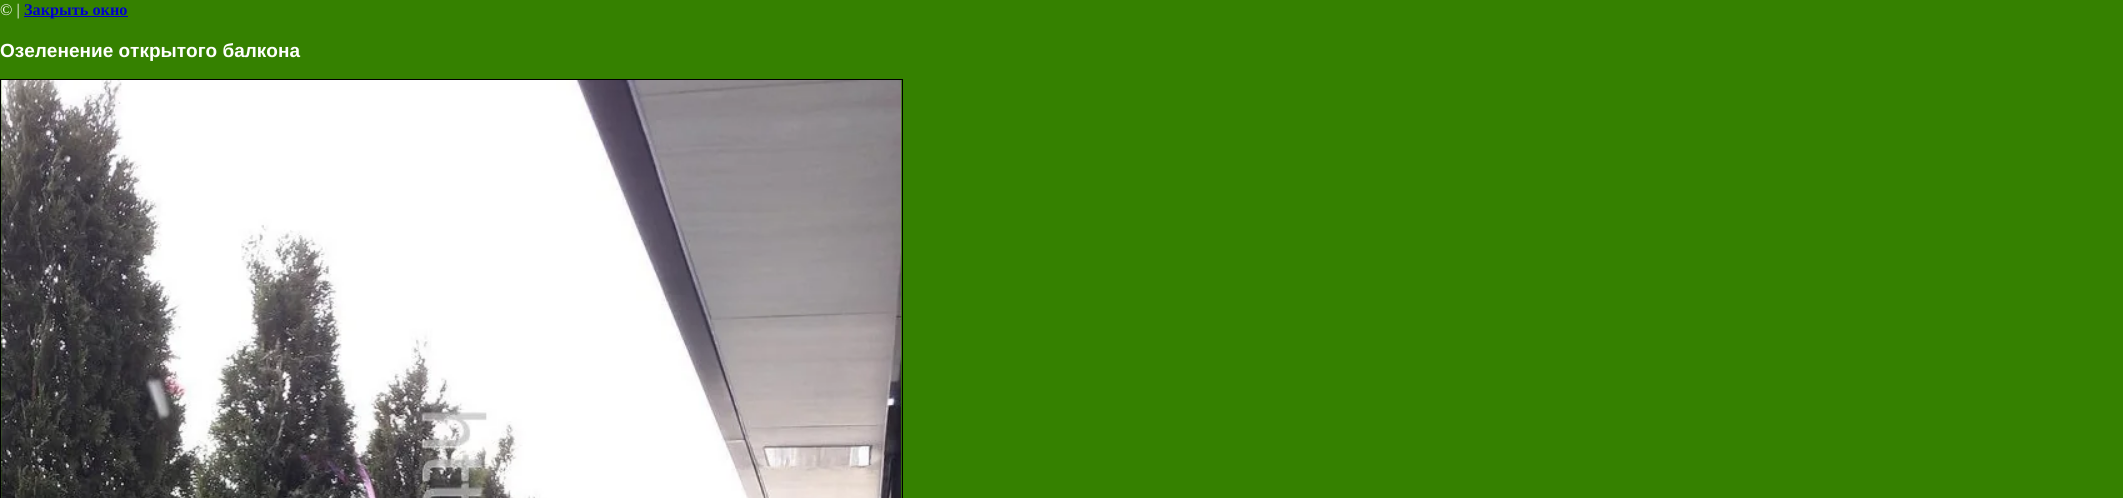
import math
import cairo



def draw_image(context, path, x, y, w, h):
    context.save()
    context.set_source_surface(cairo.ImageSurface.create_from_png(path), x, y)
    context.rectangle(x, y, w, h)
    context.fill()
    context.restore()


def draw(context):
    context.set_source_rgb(53 / 255, 129 / 255, 0)
    context.paint()
    context.set_source_rgb(0, 0, 204 / 255)
    context.rectangle(24, 16, 104, 1)
    context.fill()
    context.rectangle(0.5, 79.5, 902, 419)
    context.set_source_rgb(0, 0, 0)
    context.set_line_width(1)
    context.stroke()
    draw_image(context, "images/1.png", 1, 80, 901, 418)
    context.select_font_face("Liberation Serif")
    context.set_font_size(16.25)
    context.set_source_rgb(1, 1, 1)
    context.move_to(0, 15)
    context.show_text("© |")
    context.select_font_face("Liberation Serif", cairo.FontSlant.NORMAL, cairo.FontWeight.BOLD)
    context.set_source_rgb(0, 0, 204 / 255)
    context.move_to(24, 15)
    context.show_text("Закрыть окно")
    context.select_font_face("Liberation Sans", cairo.FontSlant.NORMAL, cairo.FontWeight.BOLD)
    context.set_font_size(19)
    context.set_source_rgb(1, 1, 1)
    context.move_to(0, 57)
    context.show_text("Озеленение открытого балкона")


surface = cairo.ImageSurface(cairo.Format.RGB24, 2123, 498)
context = cairo.Context(surface)
options = cairo.FontOptions()
options.set_hint_metrics(cairo.HintMetrics.OFF)
options.set_hint_style(cairo.HintStyle.NONE)
context.set_font_options(options)
context.set_miter_limit(4)
draw(context)
surface.write_to_png("out.png")
